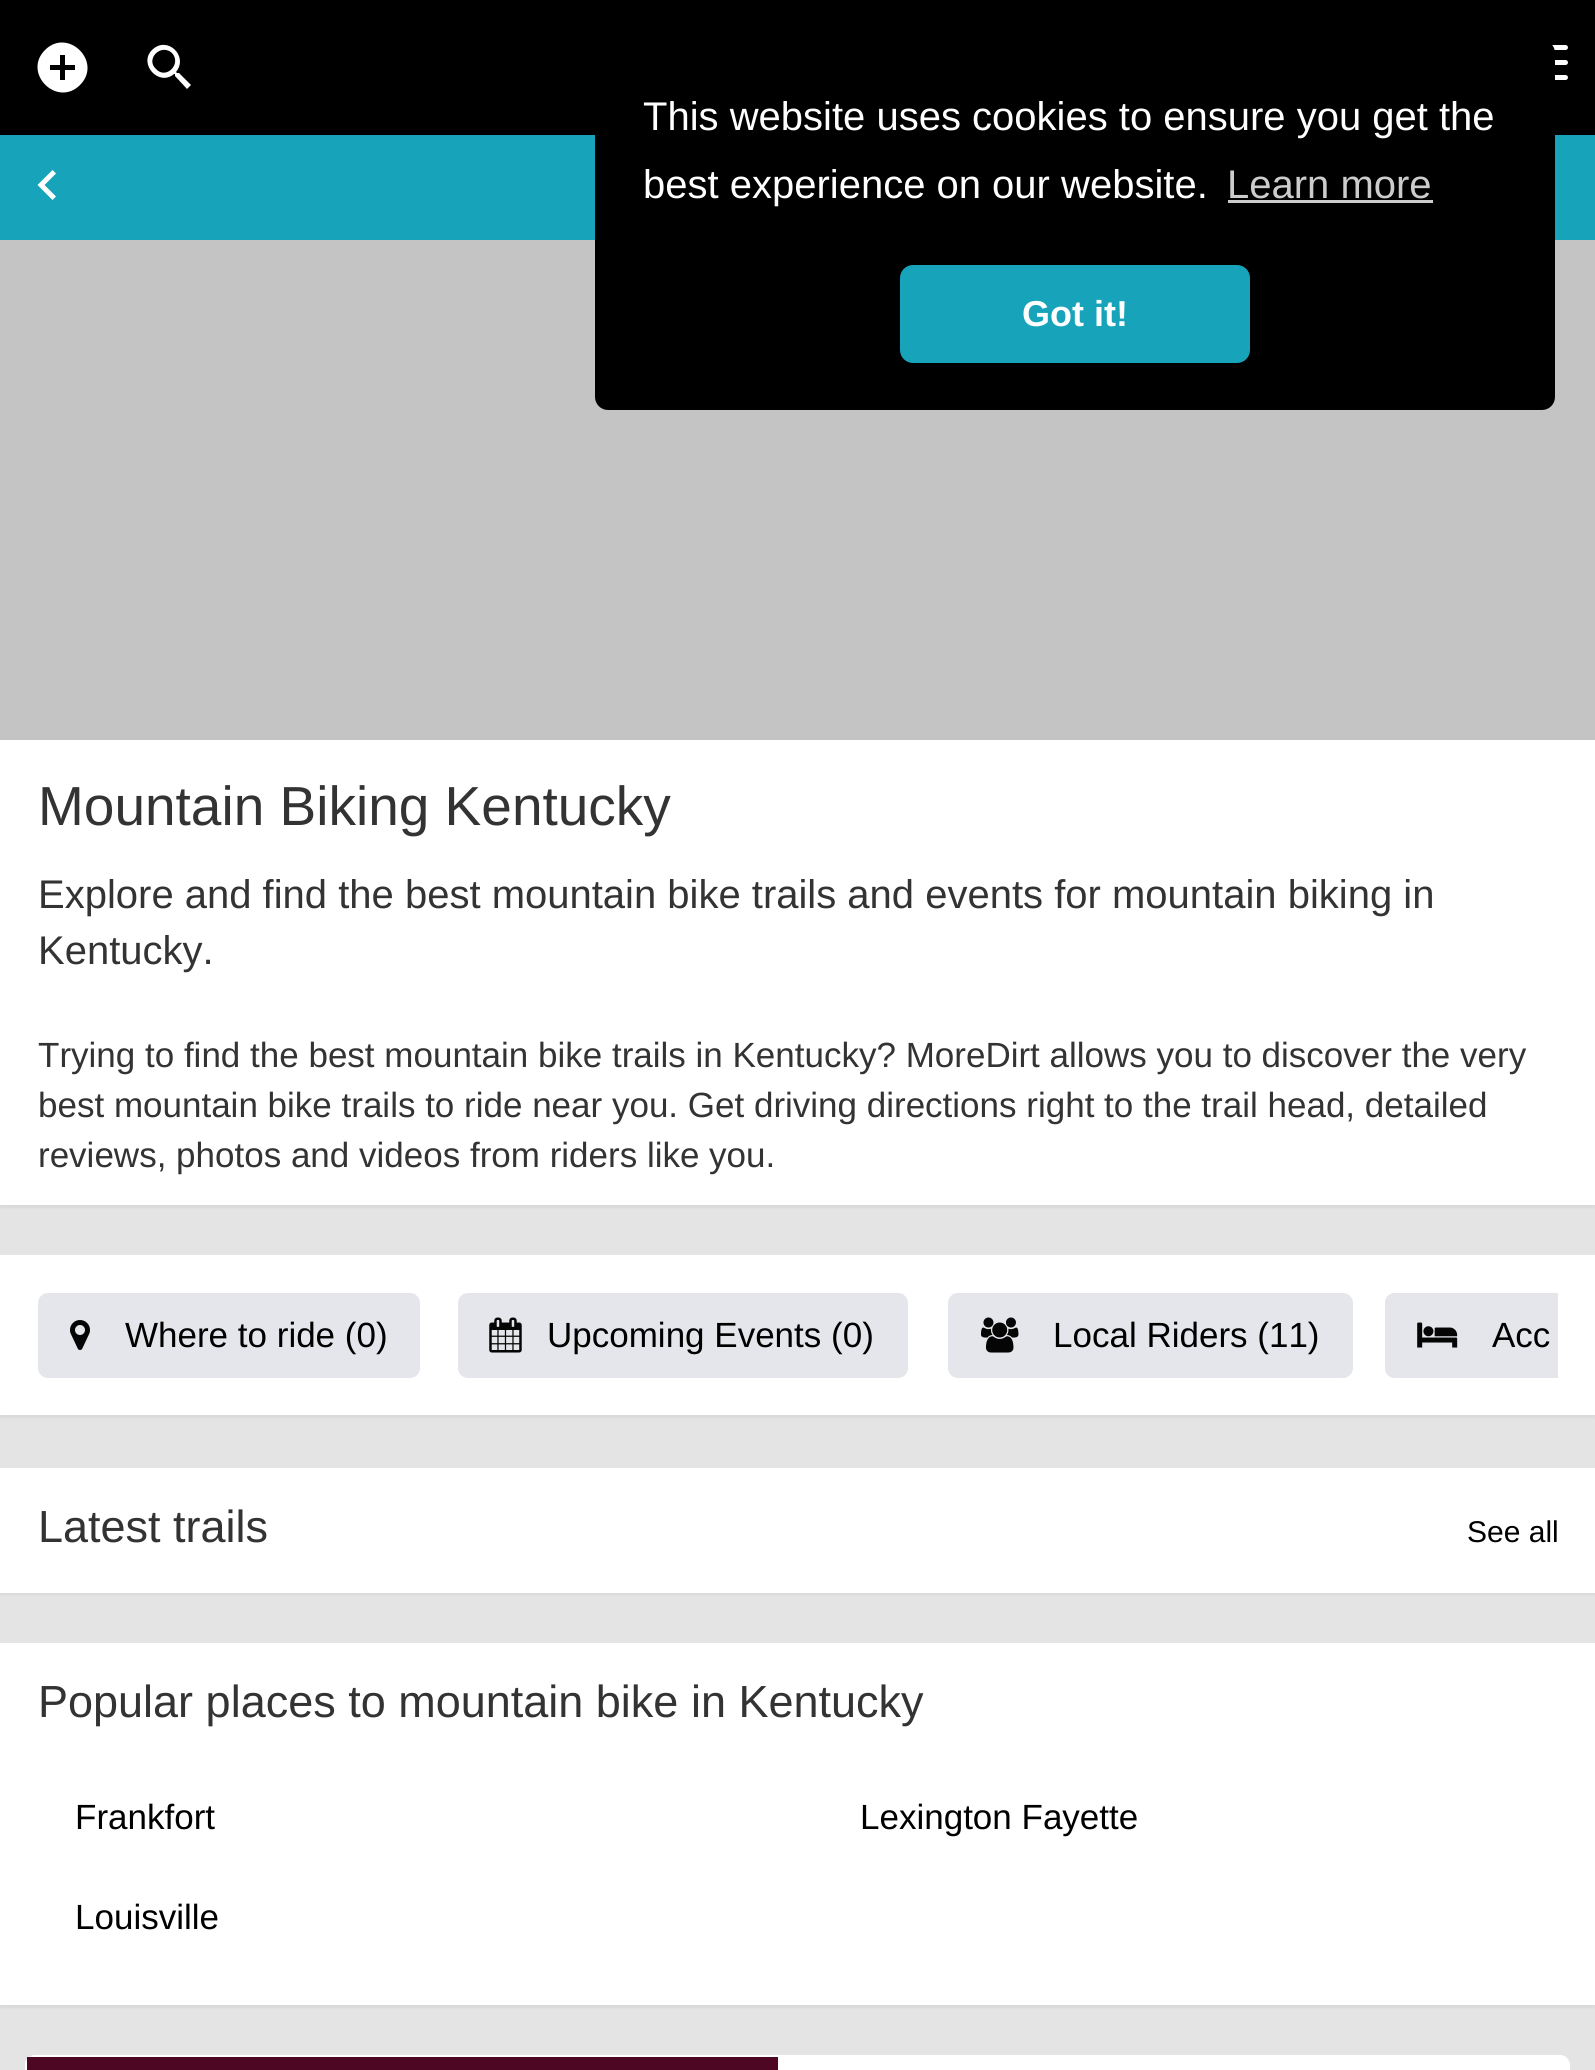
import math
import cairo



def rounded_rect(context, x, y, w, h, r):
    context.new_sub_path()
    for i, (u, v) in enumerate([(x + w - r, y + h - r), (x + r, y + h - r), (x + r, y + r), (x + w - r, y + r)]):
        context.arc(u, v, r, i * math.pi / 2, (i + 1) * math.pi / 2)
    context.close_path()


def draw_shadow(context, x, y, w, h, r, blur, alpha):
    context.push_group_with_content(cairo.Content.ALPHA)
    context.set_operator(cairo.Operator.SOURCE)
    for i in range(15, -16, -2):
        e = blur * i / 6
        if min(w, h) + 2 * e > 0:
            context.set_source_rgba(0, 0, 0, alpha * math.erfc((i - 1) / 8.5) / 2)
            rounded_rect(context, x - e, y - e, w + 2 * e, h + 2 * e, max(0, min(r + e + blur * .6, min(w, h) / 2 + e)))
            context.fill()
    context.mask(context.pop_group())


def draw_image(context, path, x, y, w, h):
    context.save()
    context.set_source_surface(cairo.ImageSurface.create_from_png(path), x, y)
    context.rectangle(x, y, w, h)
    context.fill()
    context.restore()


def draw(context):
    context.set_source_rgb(228 / 255, 228 / 255, 228 / 255)
    context.paint()
    context.set_source_rgb(0, 0, 0)
    context.rectangle(0, 0, 1595, 135)
    context.fill()
    context.set_source_rgb(1, 1, 1)
    context.new_path()
    context.move_to(75, 70)
    context.line_to(75, 65)
    context.line_to(65, 65)
    context.line_to(65, 55)
    context.line_to(60, 55)
    context.line_to(60, 65)
    context.line_to(50, 65)
    context.line_to(50, 70)
    context.line_to(60, 70)
    context.line_to(60, 80)
    context.line_to(65, 80)
    context.line_to(65, 70)
    context.close_path()
    context.move_to(45, 50)
    context.curve_to(68, 27, 103, 62, 80, 85)
    context.curve_to(57, 108, 22, 73, 45, 50)
    context.close_path()
    context.fill()
    context.new_path()
    context.move_to(156, 69)
    context.curve_to(166, 80, 182, 64, 172, 53)
    context.curve_to(161, 43, 145, 59, 156, 69)
    context.close_path()
    context.move_to(179, 73)
    context.line_to(191, 85)
    context.line_to(187, 89)
    context.line_to(175, 76)
    context.line_to(175, 74)
    context.line_to(174, 74)
    context.curve_to(159, 87, 138, 64, 152, 50)
    context.curve_to(167, 35, 189, 56, 176, 72)
    context.line_to(177, 73)
    context.close_path()
    context.fill()
    rounded_rect(context, 1513, 45, 55, 5, 2.5)
    context.fill()
    rounded_rect(context, 1513, 60, 55, 5, 2.5)
    context.fill()
    rounded_rect(context, 1513, 75, 55, 5, 2.5)
    context.fill()
    context.set_source_rgb(23 / 255, 164 / 255, 186 / 255)
    context.rectangle(0, 135, 1595, 105)
    context.fill()
    context.set_source_rgb(0, 0, 0)
    draw_shadow(context, 0, 243, 1595, 965, 0, 1, 0.05)
    context.set_source_rgb(196 / 255, 196 / 255, 196 / 255)
    context.rectangle(0, 240, 1595, 500)
    context.fill()
    context.set_source_rgb(0, 0, 0)
    rounded_rect(context, 595, 40, 960, 370, 13)
    context.fill()
    context.set_source_rgb(204 / 255, 204 / 255, 204 / 255)
    context.rectangle(1228, 200, 205, 3)
    context.fill()
    context.set_source_rgb(23 / 255, 164 / 255, 186 / 255)
    rounded_rect(context, 900, 265, 350, 98, 13)
    context.fill()
    context.set_source_rgb(1, 1, 1)
    context.new_path()
    context.move_to(56, 196.5)
    context.line_to(52.5, 200)
    context.line_to(37.5, 185)
    context.line_to(52.5, 170)
    context.line_to(56, 173.5)
    context.line_to(44.5, 185)
    context.close_path()
    context.fill()
    context.rectangle(0, 740, 1595, 465)
    context.fill()
    context.set_source_rgb(0, 0, 0)
    draw_shadow(context, 0, 1258, 1595, 160, 0, 1, 0.05)
    context.set_source_rgb(1, 1, 1)
    context.rectangle(0, 1255, 1595, 160)
    context.fill()
    context.set_source_rgb(228 / 255, 230 / 255, 235 / 255)
    rounded_rect(context, 39.5, 1294.5, 379, 82, 8.5)
    context.fill_preserve()
    context.set_line_width(3)
    context.stroke()
    draw_image(context, "images/1.png", 70, 1320, 20, 30)
    rounded_rect(context, 459.5, 1294.5, 447, 82, 8.5)
    context.fill_preserve()
    context.stroke()
    draw_image(context, "images/2.png", 489, 1317, 33, 36)
    rounded_rect(context, 949.5, 1294.5, 402, 82, 8.5)
    context.fill_preserve()
    context.stroke()
    draw_image(context, "images/3.png", 981, 1317, 38, 36)
    context.new_path()
    context.move_to(1395, 1293)
    context.line_to(1558, 1293)
    context.line_to(1558, 1378)
    context.line_to(1395, 1378)
    context.curve_to(1389.5, 1378, 1385, 1373.5, 1385, 1368)
    context.line_to(1385, 1303)
    context.curve_to(1385, 1297.5, 1389.5, 1293, 1395, 1293)
    context.close_path()
    context.fill()
    context.save()
    context.rectangle(38, 1293, 1520, 85)
    context.clip()
    rounded_rect(context, 1386.5, 1294.5, 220, 82, 8.5)
    context.stroke()
    context.restore()
    draw_image(context, "images/4.png", 1417, 1322, 41, 26)
    context.set_source_rgb(0, 0, 0)
    draw_shadow(context, 0, 1470, 1595, 125, 0, 1, 0.05)
    context.set_source_rgb(1, 1, 1)
    context.rectangle(0, 1468, 1595, 125)
    context.fill()
    context.set_source_rgb(0, 0, 0)
    draw_shadow(context, 0, 1645, 1595, 363, 0, 1, 0.05)
    context.set_source_rgb(1, 1, 1)
    context.rectangle(0, 1643, 1595, 362)
    context.fill()
    rounded_rect(context, 25, 2055, 1545, 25, 10)
    context.fill()
    context.set_source_rgb(77 / 255, 7 / 255, 35 / 255)
    context.rectangle(27, 2057, 751, 13)
    context.fill()
    context.select_font_face("Liberation Sans")
    context.set_font_size(40)
    context.set_source_rgb(1, 1, 1)
    context.move_to(643, 130)
    context.show_text("This website uses cookies to ensure you get the")
    context.move_to(643, 198)
    context.show_text("best experience on our website.")
    context.set_source_rgb(204 / 255, 204 / 255, 204 / 255)
    context.move_to(1227, 198)
    context.show_text("Learn more")
    context.select_font_face("Liberation Sans", cairo.FontSlant.NORMAL, cairo.FontWeight.BOLD)
    context.set_font_size(36)
    context.set_source_rgb(1, 1, 1)
    context.move_to(1022, 326)
    context.show_text("Got it!")
    context.select_font_face("Liberation Sans")
    context.set_font_size(55)
    context.set_source_rgb(51 / 255, 51 / 255, 51 / 255)
    context.move_to(38, 825)
    context.show_text("Mountain Biking Kentucky")
    context.set_font_size(40)
    context.move_to(38, 908)
    context.show_text("Explore and find the best mountain bike trails and events for mountain biking in")
    context.move_to(38, 964)
    context.show_text("Kentucky.")
    context.set_font_size(35)
    context.move_to(38, 1067)
    context.show_text("Trying to find the best mountain bike trails in Kentucky? MoreDirt allows you to discover the very")
    context.move_to(38, 1117)
    context.show_text("best mountain bike trails to ride near you. Get driving directions right to the trail head, detailed")
    context.move_to(38, 1167)
    context.show_text("reviews, photos and videos from riders like you.")
    context.set_source_rgb(0, 0, 0)
    context.move_to(125, 1347)
    context.show_text("Where to ride (0)")
    context.move_to(547, 1347)
    context.show_text("Upcoming Events (0)")
    context.move_to(1053, 1347)
    context.show_text("Local Riders (11)")
    context.move_to(1492, 1347)
    context.show_text("Acc")
    context.set_font_size(45)
    context.set_source_rgb(51 / 255, 51 / 255, 51 / 255)
    context.move_to(38, 1542)
    context.show_text("Latest trails")
    context.set_font_size(30)
    context.set_source_rgb(0, 0, 0)
    context.move_to(1467, 1542)
    context.show_text("See all")
    context.set_font_size(45)
    context.set_source_rgb(51 / 255, 51 / 255, 51 / 255)
    context.move_to(38, 1717)
    context.show_text("Popular places to mountain bike in Kentucky")
    context.set_font_size(35)
    context.set_source_rgb(0, 0, 0)
    context.move_to(75, 1829)
    context.show_text("Frankfort")
    context.move_to(860, 1829)
    context.show_text("Lexington Fayette")
    context.move_to(75, 1929)
    context.show_text("Louisville")


surface = cairo.ImageSurface(cairo.Format.RGB24, 1595, 2070)
context = cairo.Context(surface)
options = cairo.FontOptions()
options.set_hint_metrics(cairo.HintMetrics.OFF)
options.set_hint_style(cairo.HintStyle.NONE)
context.set_font_options(options)
context.set_miter_limit(4)
draw(context)
surface.write_to_png("out.png")
